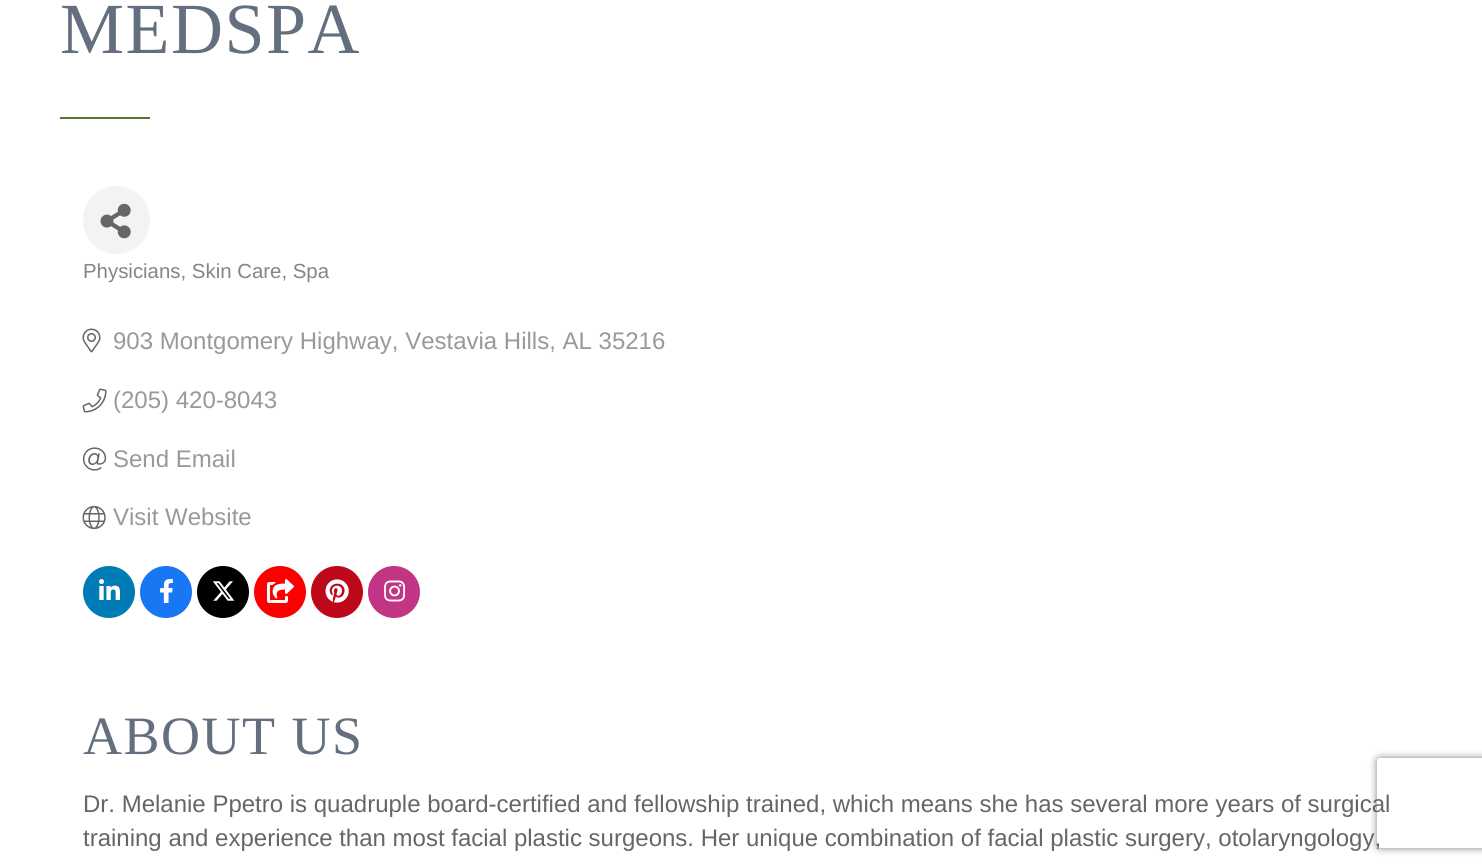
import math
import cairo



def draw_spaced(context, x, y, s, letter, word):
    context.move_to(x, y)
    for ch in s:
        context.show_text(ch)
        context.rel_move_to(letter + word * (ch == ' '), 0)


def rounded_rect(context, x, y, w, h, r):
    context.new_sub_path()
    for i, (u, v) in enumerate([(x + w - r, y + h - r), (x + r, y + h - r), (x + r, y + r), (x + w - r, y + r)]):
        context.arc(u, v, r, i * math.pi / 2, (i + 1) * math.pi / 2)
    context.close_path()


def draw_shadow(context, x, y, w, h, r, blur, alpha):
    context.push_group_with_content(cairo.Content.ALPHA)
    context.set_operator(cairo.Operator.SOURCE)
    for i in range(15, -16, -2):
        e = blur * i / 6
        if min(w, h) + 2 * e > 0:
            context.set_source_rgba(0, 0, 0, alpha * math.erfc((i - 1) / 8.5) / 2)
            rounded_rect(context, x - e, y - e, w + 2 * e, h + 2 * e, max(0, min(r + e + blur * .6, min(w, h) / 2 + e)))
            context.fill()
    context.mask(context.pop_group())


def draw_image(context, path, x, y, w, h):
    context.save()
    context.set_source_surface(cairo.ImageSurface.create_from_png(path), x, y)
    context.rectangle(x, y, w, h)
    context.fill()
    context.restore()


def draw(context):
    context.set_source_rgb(1, 1, 1)
    context.paint()
    context.set_source_rgb(84 / 255, 119 / 255, 48 / 255)
    context.rectangle(60, 117, 90, 2)
    context.fill()
    context.set_source_rgb(243 / 255, 243 / 255, 243 / 255)
    rounded_rect(context, 83, 186, 67, 68, 33.5)
    context.fill()
    draw_image(context, "images/1.png", 100, 203, 31, 36)
    draw_image(context, "images/2.png", 82, 328, 19, 25)
    draw_image(context, "images/3.png", 82, 388, 25, 25)
    draw_image(context, "images/4.png", 82, 447, 25, 24)
    draw_image(context, "images/5.png", 82, 505, 24, 25)
    context.set_source_rgb(0, 123 / 255, 181 / 255)
    context.arc(109, 592, 26, 0, 2 * math.pi)
    context.fill()
    draw_image(context, "images/6.png", 99, 579, 21, 21)
    context.set_source_rgb(24 / 255, 119 / 255, 242 / 255)
    context.arc(166, 592, 26, 0, 2 * math.pi)
    context.fill()
    draw_image(context, "images/7.png", 160, 579, 13, 24)
    context.set_source_rgb(0, 0, 0)
    context.arc(223, 592, 26, 0, 2 * math.pi)
    context.fill()
    draw_image(context, "images/8.png", 212, 581, 23, 20)
    context.set_source_rgb(1, 0, 0)
    context.arc(280, 592, 26, 0, 2 * math.pi)
    context.fill()
    draw_image(context, "images/9.png", 267, 579, 27, 24)
    context.set_source_rgb(189 / 255, 8 / 255, 28 / 255)
    context.arc(337, 592, 26, 0, 2 * math.pi)
    context.fill()
    draw_image(context, "images/10.png", 325, 579, 24, 24)
    context.set_source_rgb(193 / 255, 53 / 255, 132 / 255)
    context.arc(394, 592, 26, 0, 2 * math.pi)
    context.fill()
    draw_image(context, "images/11.png", 384, 580, 22, 22)
    context.save()
    context.set_fill_rule(cairo.FillRule.EVEN_ODD)
    context.new_path()
    context.move_to(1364, 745)
    context.line_to(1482, 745)
    context.line_to(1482, 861)
    context.line_to(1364, 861)
    context.close_path()
    context.move_to(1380, 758)
    context.line_to(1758, 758)
    context.curve_to(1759.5, 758, 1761, 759.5, 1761, 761)
    context.line_to(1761, 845)
    context.curve_to(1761, 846.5, 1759.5, 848, 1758, 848)
    context.line_to(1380, 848)
    context.curve_to(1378.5, 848, 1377, 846.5, 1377, 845)
    context.line_to(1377, 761)
    context.curve_to(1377, 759.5, 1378.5, 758, 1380, 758)
    context.close_path()
    context.clip()
    context.set_source_rgb(128 / 255, 128 / 255, 128 / 255)
    draw_shadow(context, 1377, 758, 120, 90, 3, 4, 1)
    context.restore()
    context.select_font_face("Liberation Serif")
    context.set_font_size(72)
    context.set_source_rgb(99 / 255, 110 / 255, 127 / 255)
    draw_spaced(context, 60, 53, "MEDSPA", 1.5, 0)
    context.select_font_face("Liberation Sans")
    context.set_font_size(20.4)
    context.set_source_rgb(133 / 255, 133 / 255, 133 / 255)
    context.move_to(83, 278)
    context.show_text("Physicians, Skin Care, Spa")
    context.set_font_size(24)
    context.set_source_rgb(153 / 255, 153 / 255, 153 / 255)
    context.move_to(113, 349)
    context.show_text("903 Montgomery Highway, Vestavia Hills, AL 35216")
    context.move_to(113, 408)
    context.show_text("(205) 420-8043")
    context.move_to(113, 467)
    context.show_text("Send Email")
    context.move_to(113, 525)
    context.show_text("Visit Website")
    context.select_font_face("Liberation Serif")
    context.set_font_size(54)
    context.set_source_rgb(99 / 255, 110 / 255, 127 / 255)
    draw_spaced(context, 83, 754, "ABOUT US", 1.5, 0)
    context.select_font_face("Liberation Sans")
    context.set_font_size(24)
    context.set_source_rgb(102 / 255, 102 / 255, 102 / 255)
    context.move_to(83, 812)
    context.show_text("Dr. Melanie Ppetro is quadruple board-certified and fellowship trained, which means she has several more years of surgical")
    context.move_to(83, 846)
    context.show_text("training and experience than most facial plastic surgeons. Her unique combination of facial plastic surgery, otolaryngology,")


surface = cairo.ImageSurface(cairo.Format.RGB24, 1482, 868)
context = cairo.Context(surface)
options = cairo.FontOptions()
options.set_hint_metrics(cairo.HintMetrics.OFF)
options.set_hint_style(cairo.HintStyle.NONE)
context.set_font_options(options)
context.set_miter_limit(4)
draw(context)
surface.write_to_png("out.png")
